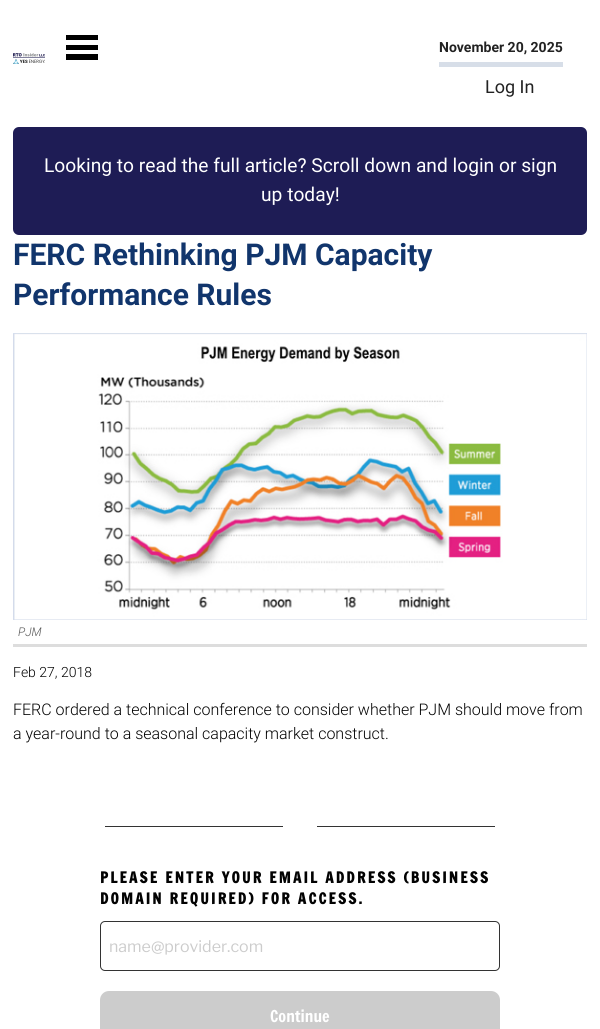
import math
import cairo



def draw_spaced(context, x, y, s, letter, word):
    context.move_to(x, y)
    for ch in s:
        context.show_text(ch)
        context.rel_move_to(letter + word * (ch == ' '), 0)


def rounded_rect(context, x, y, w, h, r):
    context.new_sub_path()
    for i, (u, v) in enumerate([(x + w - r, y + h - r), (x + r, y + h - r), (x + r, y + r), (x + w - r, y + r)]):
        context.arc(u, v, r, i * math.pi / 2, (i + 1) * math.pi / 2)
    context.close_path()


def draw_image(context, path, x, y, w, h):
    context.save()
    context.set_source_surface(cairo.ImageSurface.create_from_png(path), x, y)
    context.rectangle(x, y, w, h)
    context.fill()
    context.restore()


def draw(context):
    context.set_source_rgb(1, 1, 1)
    context.paint()
    draw_image(context, "images/1.png", 13, 53, 32, 11)
    context.set_source_rgb(0, 0, 0)
    context.rectangle(66, 35, 32, 5)
    context.fill()
    context.rectangle(66, 45, 32, 5)
    context.fill()
    context.rectangle(66, 54, 32, 6)
    context.fill()
    context.set_source_rgb(215 / 255, 222 / 255, 232 / 255)
    context.rectangle(439, 62, 124, 5)
    context.fill()
    context.set_source_rgb(30 / 255, 28 / 255, 85 / 255)
    rounded_rect(context, 13, 127, 574, 108, 6)
    context.fill()
    draw_image(context, "images/2.png", 13, 333, 574, 287)
    context.set_source_rgb(221 / 255, 221 / 255, 221 / 255)
    context.rectangle(13, 644, 574, 3)
    context.fill()
    context.set_source_rgb(51 / 255, 51 / 255, 51 / 255)
    context.rectangle(105, 826, 178, 1)
    context.fill()
    context.rectangle(317, 826, 178, 1)
    context.fill()
    rounded_rect(context, 100.5, 921.5, 399, 49, 4.5)
    context.set_line_width(1)
    context.stroke()
    context.set_source_rgb(204 / 255, 204 / 255, 204 / 255)
    rounded_rect(context, 100, 991, 400, 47, 9)
    context.fill()
    context.select_font_face("Roboto", cairo.FontSlant.NORMAL, cairo.FontWeight.BOLD)
    context.set_font_size(14)
    context.set_source_rgb(34 / 255, 34 / 255, 34 / 255)
    context.move_to(439, 52)
    context.show_text("November 20, 2025")
    context.select_font_face("Roboto")
    context.set_font_size(18)
    context.move_to(485, 93)
    context.show_text("Log In")
    context.set_font_size(19.2)
    context.set_source_rgb(1, 1, 1)
    context.move_to(44, 172)
    context.show_text("Looking to read the full article? Scroll down and login or sign")
    context.move_to(261, 201)
    context.show_text("up today!")
    context.select_font_face("Roboto", cairo.FontSlant.NORMAL, cairo.FontWeight.BOLD)
    context.set_font_size(30)
    context.set_source_rgb(17 / 255, 53 / 255, 108 / 255)
    context.move_to(13, 265)
    context.show_text("FERC Rethinking PJM Capacity")
    context.move_to(13, 305)
    context.show_text("Performance Rules")
    context.select_font_face("Roboto Light", cairo.FontSlant.ITALIC)
    context.set_font_size(12)
    context.set_source_rgb(85 / 255, 85 / 255, 85 / 255)
    context.move_to(18, 636)
    context.show_text("PJM")
    context.select_font_face("Roboto Light")
    context.set_font_size(14)
    context.set_source_rgb(2 / 255, 2 / 255, 2 / 255)
    context.move_to(13, 677)
    context.show_text("Feb 27, 2018")
    context.set_font_size(16)
    context.move_to(13, 715)
    context.show_text("FERC ordered a technical conference to consider whether PJM should move from")
    context.move_to(13, 739)
    context.show_text("a year-round to a seasonal capacity market construct.")
    context.select_font_face("Francois One", cairo.FontSlant.NORMAL, cairo.FontWeight.BOLD)
    context.set_font_size(15)
    draw_spaced(context, 100, 883, "PLEASE ENTER YOUR EMAIL ADDRESS (BUSINESS", 2.25, 0)
    draw_spaced(context, 100, 904, "DOMAIN REQUIRED) FOR ACCESS.", 2.25, 0)
    context.select_font_face("Libre Franklin")
    context.set_font_size(16)
    context.set_source_rgb(204 / 255, 204 / 255, 204 / 255)
    context.move_to(109, 952)
    context.show_text("name@provider.com")
    context.select_font_face("Francois One")
    context.set_source_rgb(1, 1, 1)
    context.move_to(270, 1022)
    context.show_text("Continue")


surface = cairo.ImageSurface(cairo.Format.RGB24, 600, 1029)
context = cairo.Context(surface)
options = cairo.FontOptions()
options.set_hint_metrics(cairo.HintMetrics.OFF)
options.set_hint_style(cairo.HintStyle.NONE)
context.set_font_options(options)
context.set_miter_limit(4)
draw(context)
surface.write_to_png("out.png")
